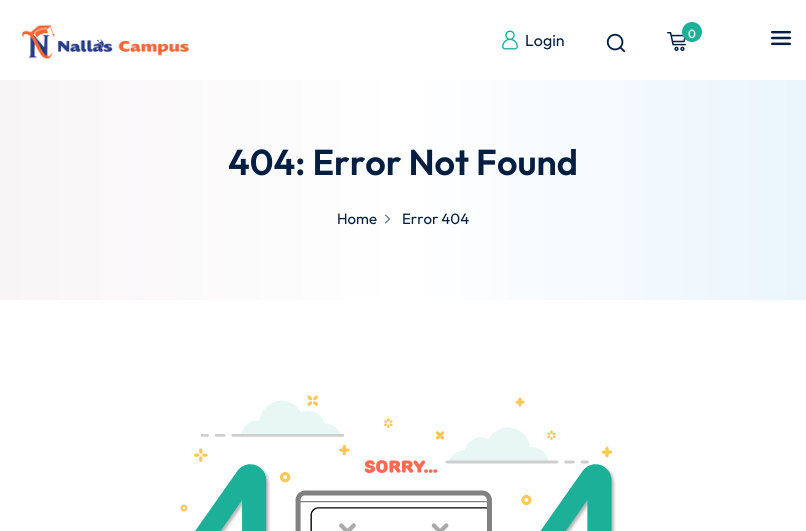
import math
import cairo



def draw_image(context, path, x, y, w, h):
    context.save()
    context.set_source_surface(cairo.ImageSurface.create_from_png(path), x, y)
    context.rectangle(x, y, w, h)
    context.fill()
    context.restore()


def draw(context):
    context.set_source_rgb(1, 1, 1)
    context.paint()
    draw_image(context, "images/1.png", 21, 25, 168, 34)
    draw_image(context, "images/2.png", 502, 30, 16, 20)
    draw_image(context, "images/3.png", 606, 33, 20, 20)
    draw_image(context, "images/4.png", 667, 32, 19, 19)
    context.set_source_rgb(28 / 255, 176 / 255, 152 / 255)
    context.arc(692, 32, 10, 0, 2 * math.pi)
    context.fill()
    draw_image(context, "images/5.png", 771, 30, 20, 16)
    gradient = cairo.LinearGradient(0, 190, 806, 190)
    gradient.add_color_stop_rgba(0, 248 / 255, 245 / 255, 247 / 255, 1)
    gradient.add_color_stop_rgba(0.5, 1, 1, 1, 1)
    gradient.add_color_stop_rgba(1, 234 / 255, 245 / 255, 253 / 255, 1)
    context.set_source(gradient)
    context.rectangle(0, 80, 806, 220)
    context.fill()
    draw_image(context, "images/6.png", 385, 214, 5, 10)
    draw_image(context, "images/7.png", 180, 395, 436, 136)
    context.select_font_face("Outfit")
    context.set_font_size(16)
    context.set_source_rgb(2 / 255, 30 / 255, 64 / 255)
    context.move_to(525, 46)
    context.show_text("Login")
    context.select_font_face("Outfit Medium")
    context.set_font_size(12)
    context.set_source_rgb(1, 1, 1)
    context.move_to(688, 38)
    context.show_text("0")
    context.select_font_face("Outfit SemiBold")
    context.set_font_size(36)
    context.set_source_rgb(2 / 255, 30 / 255, 64 / 255)
    context.move_to(228, 175)
    context.show_text("404: Error Not Found")
    context.select_font_face("Outfit")
    context.set_font_size(15)
    context.move_to(337, 224)
    context.show_text("Home")
    context.move_to(402, 224)
    context.show_text("Error 404")


surface = cairo.ImageSurface(cairo.Format.RGB24, 806, 531)
context = cairo.Context(surface)
options = cairo.FontOptions()
options.set_hint_metrics(cairo.HintMetrics.OFF)
options.set_hint_style(cairo.HintStyle.NONE)
context.set_font_options(options)
context.set_miter_limit(4)
draw(context)
surface.write_to_png("out.png")
